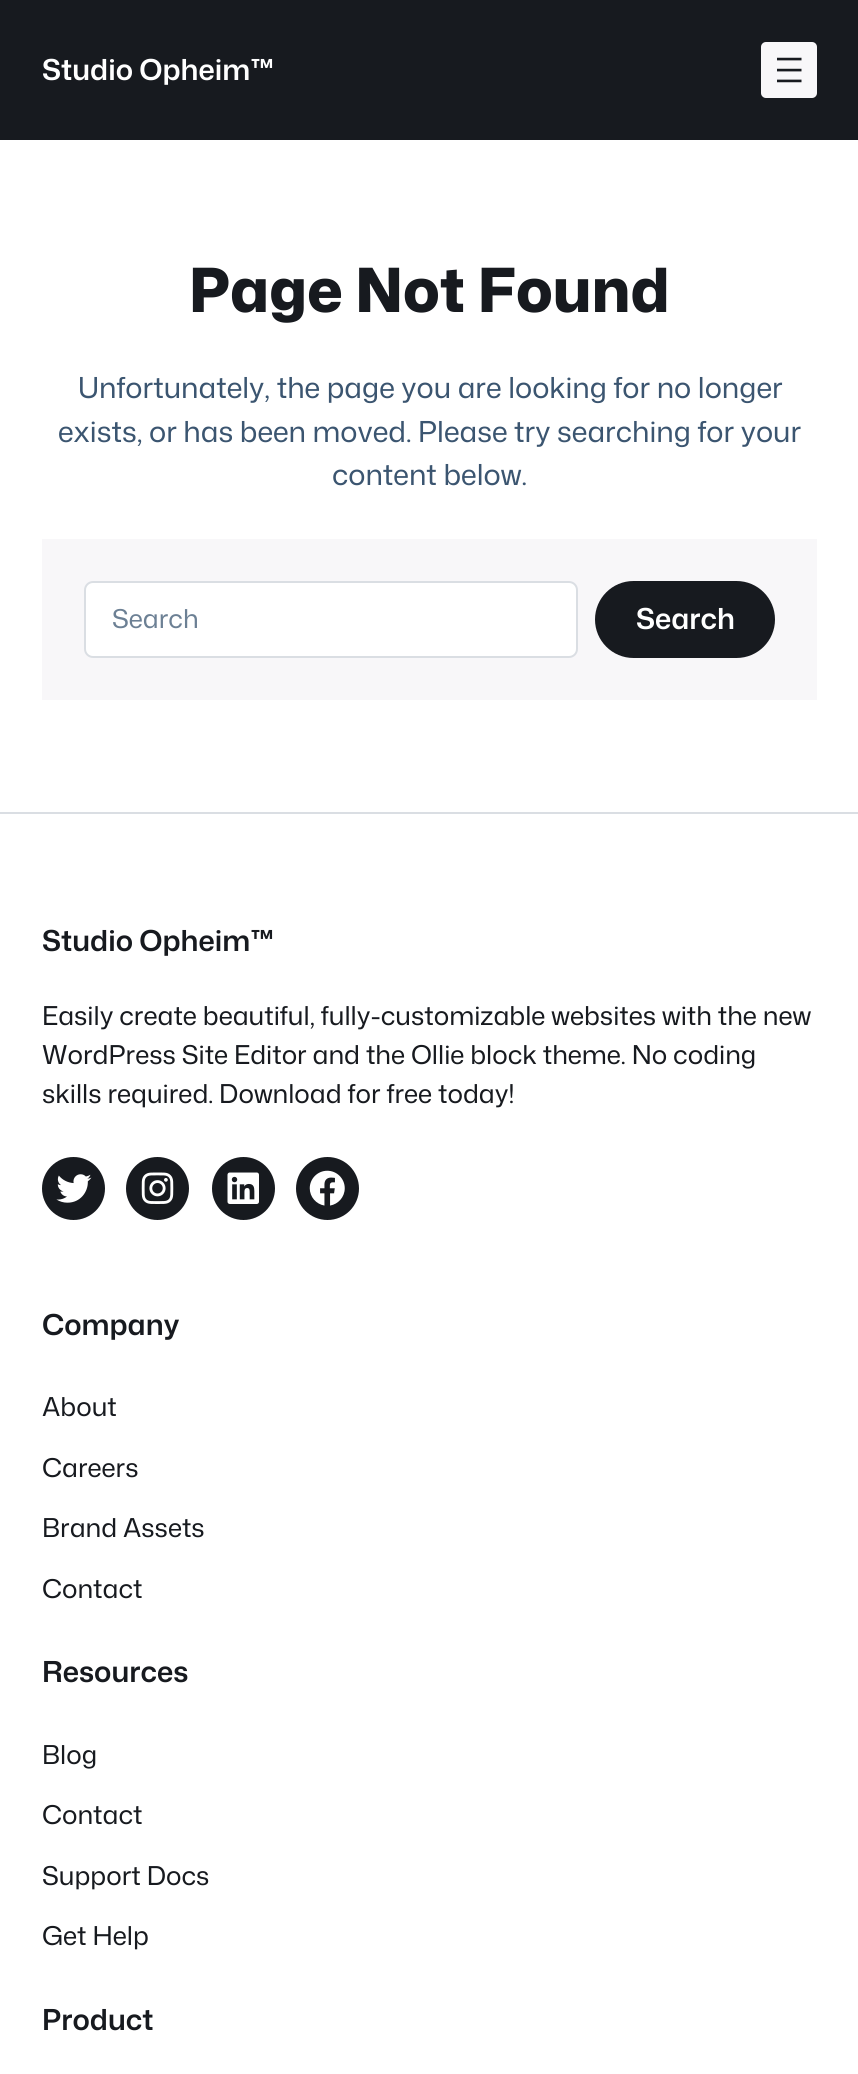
import math
import cairo



def rounded_rect(context, x, y, w, h, r):
    context.new_sub_path()
    for i, (u, v) in enumerate([(x + w - r, y + h - r), (x + r, y + h - r), (x + r, y + r), (x + w - r, y + r)]):
        context.arc(u, v, r, i * math.pi / 2, (i + 1) * math.pi / 2)
    context.close_path()


def draw_image(context, path, x, y, w, h):
    context.save()
    context.set_source_surface(cairo.ImageSurface.create_from_png(path), x, y)
    context.rectangle(x, y, w, h)
    context.fill()
    context.restore()


def draw(context):
    context.set_source_rgb(1, 1, 1)
    context.paint()
    context.set_source_rgb(23 / 255, 26 / 255, 31 / 255)
    context.rectangle(0, 0, 858, 140)
    context.fill()
    context.set_source_rgb(248 / 255, 247 / 255, 249 / 255)
    rounded_rect(context, 761, 42, 56, 56, 5)
    context.fill()
    draw_image(context, "images/1.png", 777, 57, 25, 26)
    context.rectangle(42, 539, 775, 161)
    context.fill()
    context.set_source_rgb(1, 1, 1)
    rounded_rect(context, 85, 582, 492, 75, 8)
    context.fill_preserve()
    context.set_source_rgb(218 / 255, 222 / 255, 227 / 255)
    context.stroke()
    context.set_source_rgb(23 / 255, 26 / 255, 31 / 255)
    rounded_rect(context, 595, 581, 180, 77, 38.5)
    context.fill()
    context.set_source_rgb(218 / 255, 222 / 255, 227 / 255)
    context.rectangle(0, 812, 858, 2)
    context.fill()
    context.set_source_rgb(23 / 255, 26 / 255, 31 / 255)
    context.arc(73.5, 1188.5, 31.5, 0, 2 * math.pi)
    context.fill()
    draw_image(context, "images/2.png", 56, 1174, 36, 29)
    context.arc(157.5, 1188.5, 31.5, 0, 2 * math.pi)
    context.fill()
    draw_image(context, "images/3.png", 141, 1172, 33, 32)
    context.arc(243.5, 1188.5, 31.5, 0, 2 * math.pi)
    context.fill()
    draw_image(context, "images/4.png", 227, 1172, 32, 32)
    context.arc(327.5, 1188.5, 31.5, 0, 2 * math.pi)
    context.fill()
    draw_image(context, "images/5.png", 309, 1170, 36, 36)
    context.select_font_face("Mona Sans SemiBold")
    context.set_font_size(28.85)
    context.set_source_rgb(1, 1, 1)
    context.move_to(42, 80)
    context.show_text("Studio Opheim™")
    context.select_font_face("Mona Sans ExtraBold")
    context.set_font_size(60.75)
    context.set_source_rgb(23 / 255, 26 / 255, 31 / 255)
    context.move_to(189, 312)
    context.show_text("Page Not Found")
    context.select_font_face("Mona Sans")
    context.set_font_size(28.85)
    context.set_source_rgb(59 / 255, 85 / 255, 112 / 255)
    context.move_to(78, 398)
    context.show_text("Unfortunately, the page you are looking for no longer")
    context.move_to(58, 442)
    context.show_text("exists, or has been moved. Please try searching for your")
    context.move_to(332, 485)
    context.show_text("content below.")
    context.set_font_size(25.95)
    context.set_source_rgb(108 / 255, 128 / 255, 148 / 255)
    context.move_to(112, 628)
    context.show_text("Search")
    context.select_font_face("Mona Sans SemiBold")
    context.set_font_size(28.85)
    context.set_source_rgb(1, 1, 1)
    context.move_to(636, 629)
    context.show_text("Search")
    context.set_source_rgb(23 / 255, 26 / 255, 31 / 255)
    context.move_to(42, 951)
    context.show_text("Studio Opheim™")
    context.select_font_face("Mona Sans")
    context.set_font_size(25.95)
    context.move_to(42, 1025)
    context.show_text("Easily create beautiful, fully-customizable websites with the new")
    context.move_to(42, 1064)
    context.show_text("WordPress Site Editor and the Ollie block theme. No coding")
    context.move_to(42, 1103)
    context.show_text("skills required. Download for free today!")
    context.select_font_face("Mona Sans SemiBold")
    context.set_font_size(28.85)
    context.move_to(42, 1335)
    context.show_text("Company")
    context.select_font_face("Mona Sans")
    context.set_font_size(25.95)
    context.move_to(42, 1416)
    context.show_text("About")
    context.move_to(42, 1477)
    context.show_text("Careers")
    context.move_to(42, 1537)
    context.show_text("Brand Assets")
    context.move_to(42, 1598)
    context.show_text("Contact")
    context.select_font_face("Mona Sans SemiBold")
    context.set_font_size(28.85)
    context.move_to(42, 1682)
    context.show_text("Resources")
    context.select_font_face("Mona Sans")
    context.set_font_size(25.95)
    context.move_to(42, 1764)
    context.show_text("Blog")
    context.move_to(42, 1824)
    context.show_text("Contact")
    context.move_to(42, 1885)
    context.show_text("Support Docs")
    context.move_to(42, 1945)
    context.show_text("Get Help")
    context.select_font_face("Mona Sans SemiBold")
    context.set_font_size(28.85)
    context.move_to(42, 2030)
    context.show_text("Product")


surface = cairo.ImageSurface(cairo.Format.RGB24, 858, 2074)
context = cairo.Context(surface)
options = cairo.FontOptions()
options.set_hint_metrics(cairo.HintMetrics.OFF)
options.set_hint_style(cairo.HintStyle.NONE)
context.set_font_options(options)
context.set_miter_limit(4)
draw(context)
surface.write_to_png("out.png")
